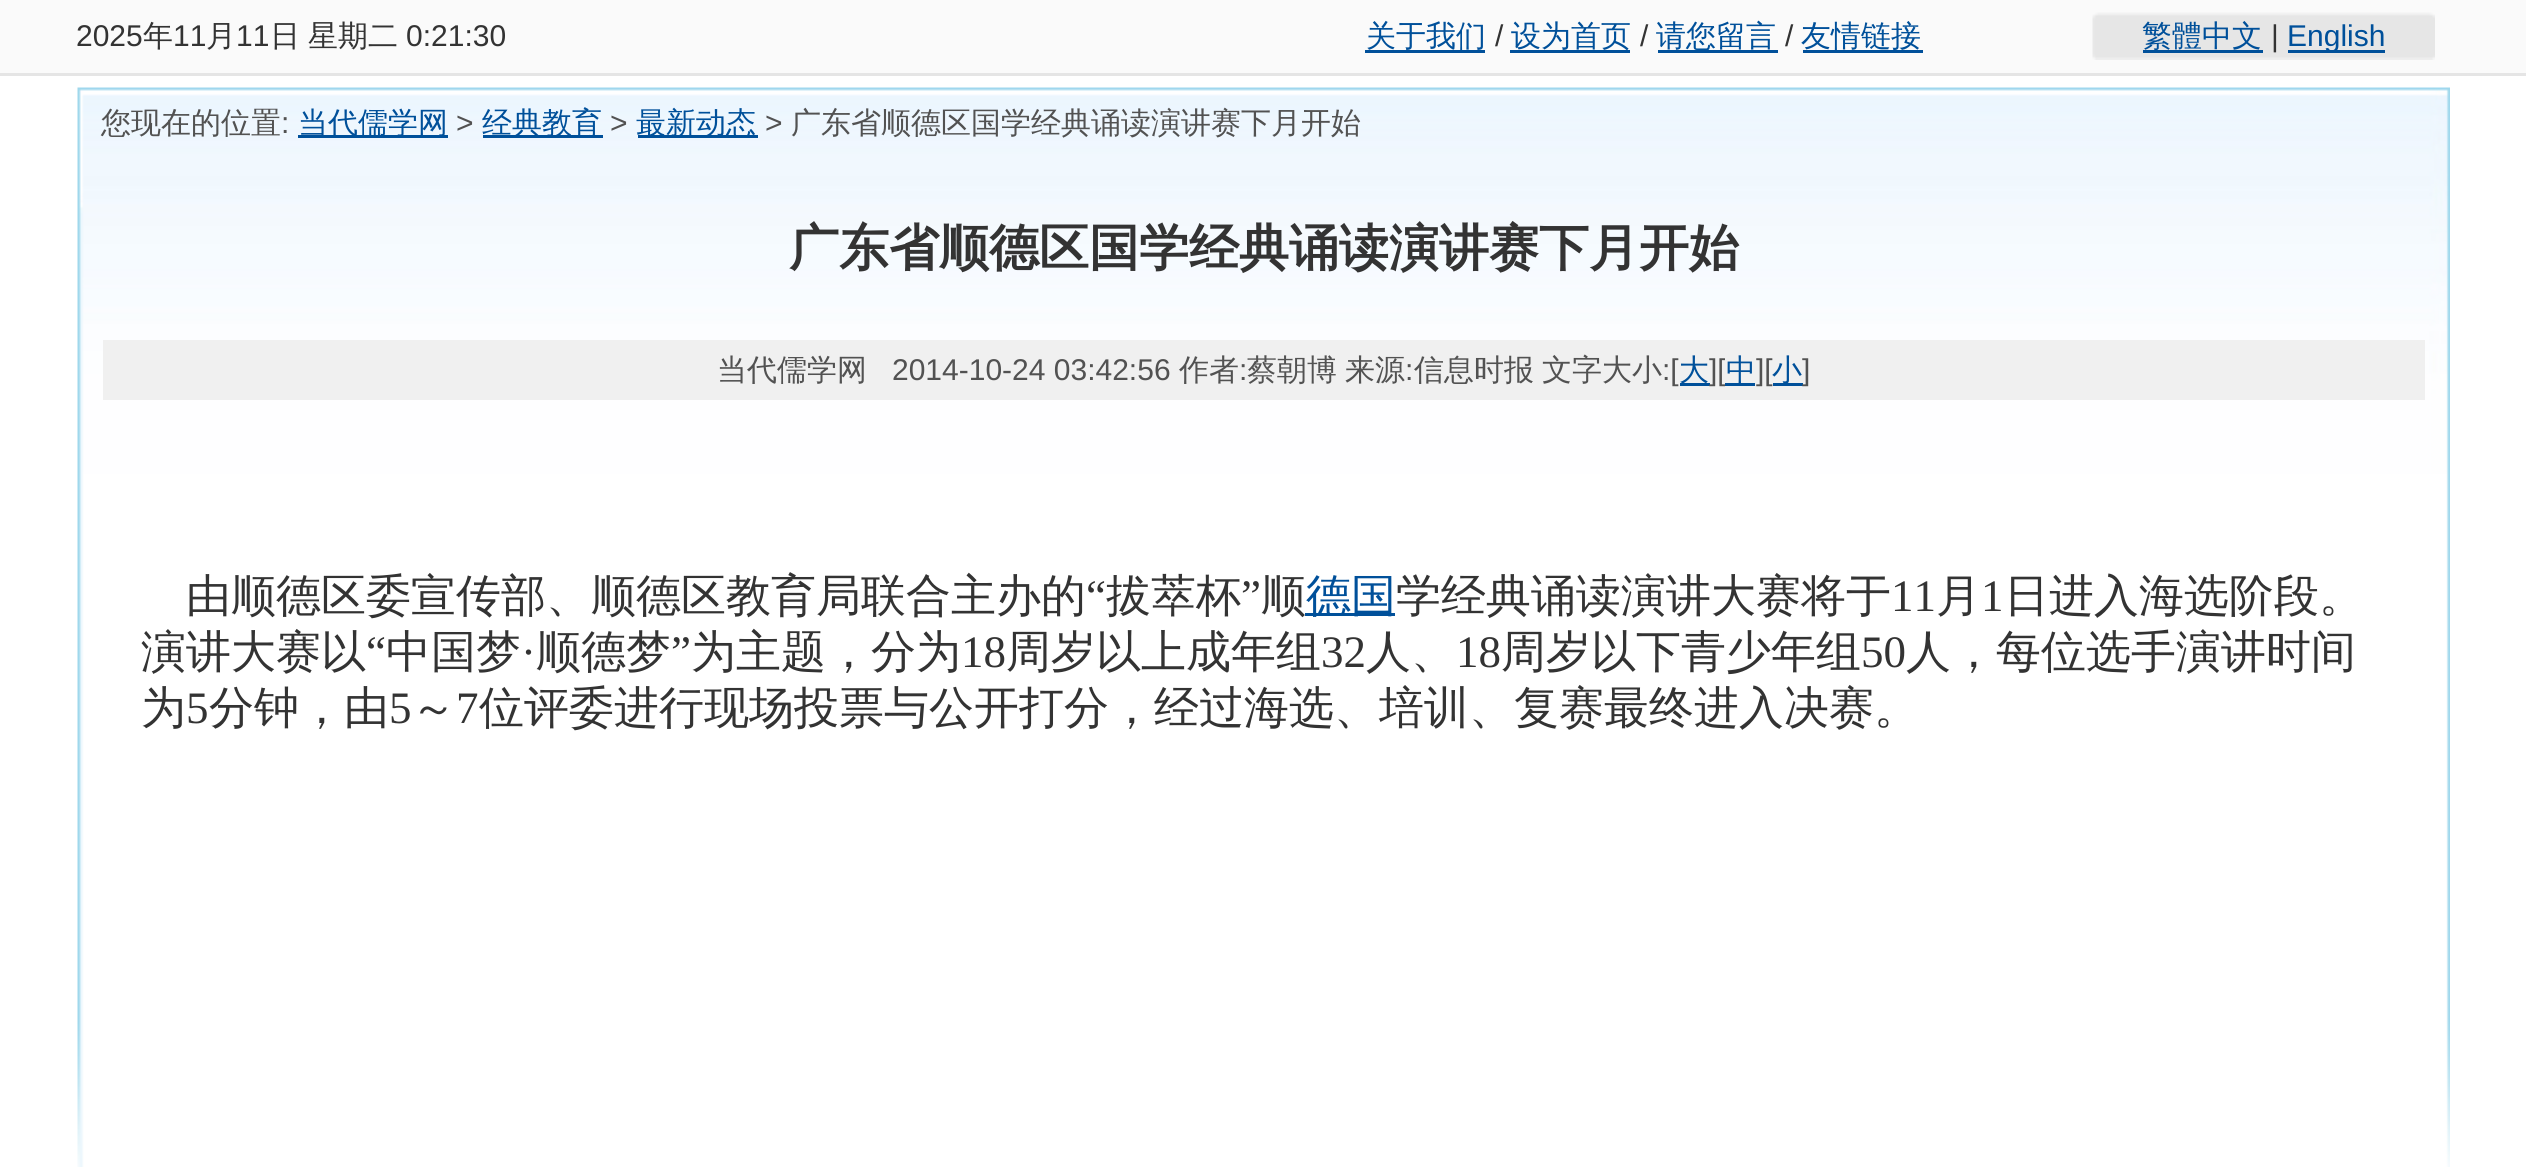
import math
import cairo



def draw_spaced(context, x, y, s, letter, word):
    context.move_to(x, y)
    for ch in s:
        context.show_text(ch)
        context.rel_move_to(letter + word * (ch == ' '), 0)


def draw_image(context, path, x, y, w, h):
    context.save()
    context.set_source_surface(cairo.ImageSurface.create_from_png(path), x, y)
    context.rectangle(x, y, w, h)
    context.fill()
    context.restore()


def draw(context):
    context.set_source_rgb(1, 1, 1)
    context.paint()
    context.set_source_rgb(250 / 255, 250 / 255, 250 / 255)
    context.rectangle(0, 0, 2526, 73)
    context.fill()
    context.set_source_rgb(0, 80 / 255, 154 / 255)
    context.rectangle(1365, 50, 120, 3)
    context.fill()
    context.rectangle(1510, 50, 120, 3)
    context.fill()
    context.rectangle(1658, 50, 120, 3)
    context.fill()
    context.rectangle(1803, 50, 120, 3)
    context.fill()
    draw_image(context, "images/1.png", 2092, 12, 343, 48)
    context.rectangle(2143, 50, 120, 3)
    context.fill()
    context.rectangle(2288, 50, 97, 3)
    context.fill()
    context.set_source_rgb(229 / 255, 229 / 255, 229 / 255)
    context.rectangle(0, 73, 2526, 3)
    context.fill()
    draw_image(context, "images/2.png", 77, 87, 2373, 1080)
    context.set_source_rgb(0, 80 / 255, 154 / 255)
    context.rectangle(298, 135, 150, 3)
    context.fill()
    context.rectangle(483, 135, 120, 3)
    context.fill()
    context.rectangle(638, 135, 120, 3)
    context.fill()
    context.set_source_rgb(240 / 255, 240 / 255, 240 / 255)
    context.rectangle(103, 340, 2322, 60)
    context.fill()
    context.set_source_rgb(0, 80 / 255, 154 / 255)
    context.rectangle(1680, 383, 30, 3)
    context.fill()
    context.rectangle(1773, 383, 30, 3)
    context.fill()
    context.select_font_face("Liberation Sans")
    context.set_font_size(30)
    context.set_source_rgb(51 / 255, 51 / 255, 51 / 255)
    context.move_to(76, 46)
    context.show_text("2025")
    context.select_font_face("WenQuanYi Zen Hei Medium")
    context.move_to(143, 46)
    context.show_text("年")
    context.select_font_face("Liberation Sans")
    context.move_to(173, 46)
    context.show_text("11")
    context.select_font_face("WenQuanYi Zen Hei Medium")
    context.move_to(206, 46)
    context.show_text("月")
    context.select_font_face("Liberation Sans")
    context.move_to(236, 46)
    context.show_text("11")
    context.select_font_face("WenQuanYi Zen Hei Medium")
    draw_spaced(context, 270, 46, "日 星期二", 0, -1)
    context.select_font_face("Liberation Sans")
    context.move_to(406, 46)
    context.show_text("0:21:30")
    context.select_font_face("WenQuanYi Zen Hei Medium")
    context.set_source_rgb(0, 80 / 255, 154 / 255)
    context.move_to(1366, 46)
    context.show_text("关于我们")
    context.select_font_face("Liberation Sans")
    context.set_source_rgb(51 / 255, 51 / 255, 51 / 255)
    context.move_to(1495, 46)
    context.show_text("/")
    context.select_font_face("WenQuanYi Zen Hei Medium")
    context.set_source_rgb(0, 80 / 255, 154 / 255)
    context.move_to(1511, 46)
    context.show_text("设为首页")
    context.select_font_face("Liberation Sans")
    context.set_source_rgb(51 / 255, 51 / 255, 51 / 255)
    context.move_to(1640, 46)
    context.show_text("/")
    context.select_font_face("WenQuanYi Zen Hei Medium")
    context.set_source_rgb(0, 80 / 255, 154 / 255)
    context.move_to(1656, 46)
    context.show_text("请您留言")
    context.select_font_face("Liberation Sans")
    context.set_source_rgb(51 / 255, 51 / 255, 51 / 255)
    context.move_to(1785, 46)
    context.show_text("/")
    context.select_font_face("WenQuanYi Zen Hei Medium")
    context.set_source_rgb(0, 80 / 255, 154 / 255)
    context.move_to(1801, 46)
    context.show_text("友情链接")
    context.move_to(2142, 46)
    context.show_text("繁體中文")
    context.select_font_face("Liberation Sans")
    context.set_source_rgb(51 / 255, 51 / 255, 51 / 255)
    context.move_to(2271, 46)
    context.show_text("|")
    context.set_source_rgb(0, 80 / 255, 154 / 255)
    context.move_to(2287, 46)
    context.show_text("English")
    context.select_font_face("WenQuanYi Zen Hei Medium")
    context.set_source_rgb(82 / 255, 82 / 255, 82 / 255)
    context.move_to(101, 133)
    context.show_text("您现在的位置")
    context.select_font_face("Liberation Sans")
    context.move_to(281, 133)
    context.show_text(":")
    context.select_font_face("WenQuanYi Zen Hei Medium")
    context.set_source_rgb(0, 80 / 255, 154 / 255)
    context.move_to(298, 133)
    context.show_text("当代儒学网")
    context.select_font_face("Liberation Sans")
    context.set_source_rgb(82 / 255, 82 / 255, 82 / 255)
    context.move_to(456, 133)
    context.show_text(">")
    context.select_font_face("WenQuanYi Zen Hei Medium")
    context.set_source_rgb(0, 80 / 255, 154 / 255)
    context.move_to(482, 133)
    context.show_text("经典教育")
    context.select_font_face("Liberation Sans")
    context.set_source_rgb(82 / 255, 82 / 255, 82 / 255)
    context.move_to(610, 133)
    context.show_text(">")
    context.select_font_face("WenQuanYi Zen Hei Medium")
    context.set_source_rgb(0, 80 / 255, 154 / 255)
    context.move_to(636, 133)
    context.show_text("最新动态")
    context.select_font_face("Liberation Sans")
    context.set_source_rgb(82 / 255, 82 / 255, 82 / 255)
    context.move_to(765, 133)
    context.show_text(">")
    context.select_font_face("WenQuanYi Zen Hei Medium")
    context.move_to(791, 133)
    context.show_text("广东省顺德区国学经典诵读演讲赛下月开始")
    context.select_font_face("WenQuanYi Zen Hei", cairo.FontSlant.NORMAL, cairo.FontWeight.BOLD)
    context.set_font_size(50)
    context.set_source_rgb(51 / 255, 51 / 255, 51 / 255)
    context.move_to(789, 265)
    context.show_text("广东省顺德区国学经典诵读演讲赛下月开始")
    context.select_font_face("WenQuanYi Zen Hei Medium")
    context.set_font_size(30)
    context.set_source_rgb(82 / 255, 82 / 255, 82 / 255)
    context.move_to(717, 380)
    context.show_text("当代儒学网")
    context.select_font_face("Liberation Sans")
    context.move_to(892, 380)
    context.show_text("2014-10-24 03:42:56")
    context.select_font_face("WenQuanYi Zen Hei Medium")
    context.move_to(1179, 380)
    context.show_text("作者")
    context.select_font_face("Liberation Sans")
    context.move_to(1239, 380)
    context.show_text(":")
    context.select_font_face("WenQuanYi Zen Hei Medium")
    context.move_to(1247, 380)
    context.show_text("蔡朝博")
    context.move_to(1345, 380)
    context.show_text("来源")
    context.select_font_face("Liberation Sans")
    context.move_to(1405, 380)
    context.show_text(":")
    context.select_font_face("WenQuanYi Zen Hei Medium")
    context.move_to(1414, 380)
    context.show_text("信息时报")
    context.move_to(1542, 380)
    context.show_text("文字大小")
    context.select_font_face("Liberation Sans")
    context.move_to(1662, 380)
    context.show_text(":[")
    context.select_font_face("WenQuanYi Zen Hei Medium")
    context.set_source_rgb(0, 80 / 255, 154 / 255)
    context.move_to(1679, 380)
    context.show_text("大")
    context.select_font_face("Liberation Sans")
    context.set_source_rgb(82 / 255, 82 / 255, 82 / 255)
    context.move_to(1709, 380)
    context.show_text("][")
    context.set_source_rgb(240 / 255, 240 / 255, 240 / 255)
    context.rectangle(1725, 358, 1, 29)
    context.fill()
    context.set_source_rgb(0, 80 / 255, 154 / 255)
    context.rectangle(1725, 383, 30, 3)
    context.fill()
    context.select_font_face("WenQuanYi Zen Hei Medium")
    context.move_to(1726, 380)
    context.show_text("中")
    context.select_font_face("Liberation Sans")
    context.set_source_rgb(82 / 255, 82 / 255, 82 / 255)
    context.move_to(1756, 380)
    context.show_text("][")
    context.select_font_face("WenQuanYi Zen Hei Medium")
    context.set_source_rgb(0, 80 / 255, 154 / 255)
    context.move_to(1772, 380)
    context.show_text("小")
    context.select_font_face("Liberation Sans")
    context.set_source_rgb(82 / 255, 82 / 255, 82 / 255)
    context.move_to(1802, 380)
    context.show_text("]")
    context.select_font_face("WenQuanYi Zen Hei Medium")
    context.set_font_size(45)
    context.set_source_rgb(51 / 255, 51 / 255, 51 / 255)
    context.move_to(186, 611)
    context.show_text("由顺德区委宣传部、顺德区教育局联合主办的")
    context.select_font_face("Liberation Serif")
    context.move_to(1086, 611)
    context.show_text("“")
    context.select_font_face("WenQuanYi Zen Hei Medium")
    context.move_to(1106, 611)
    context.show_text("拔萃杯")
    context.select_font_face("Liberation Serif")
    context.move_to(1241, 611)
    context.show_text("”")
    context.select_font_face("WenQuanYi Zen Hei Medium")
    context.move_to(1261, 611)
    context.show_text("顺")
    context.set_source_rgb(0, 80 / 255, 154 / 255)
    context.rectangle(1305, 613, 90, 3)
    context.fill()
    context.move_to(1306, 611)
    context.show_text("德国")
    context.set_source_rgb(51 / 255, 51 / 255, 51 / 255)
    context.move_to(1396, 611)
    context.show_text("学经典诵读演讲大赛将于")
    context.select_font_face("Liberation Serif")
    context.move_to(1891, 611)
    context.show_text("11")
    context.select_font_face("WenQuanYi Zen Hei Medium")
    context.move_to(1936, 611)
    context.show_text("月")
    context.select_font_face("Liberation Serif")
    context.move_to(1981, 611)
    context.show_text("1")
    context.select_font_face("WenQuanYi Zen Hei Medium")
    context.move_to(2004, 611)
    context.show_text("日进入海选阶段。")
    context.move_to(141, 667)
    context.show_text("演讲大赛以")
    context.select_font_face("Liberation Serif")
    context.move_to(366, 667)
    context.show_text("“")
    context.select_font_face("WenQuanYi Zen Hei Medium")
    context.move_to(386, 667)
    context.show_text("中国梦")
    context.select_font_face("Liberation Serif")
    context.move_to(521, 667)
    context.show_text("·")
    context.select_font_face("WenQuanYi Zen Hei Medium")
    context.move_to(536, 667)
    context.show_text("顺德梦")
    context.select_font_face("Liberation Serif")
    context.move_to(671, 667)
    context.show_text("”")
    context.select_font_face("WenQuanYi Zen Hei Medium")
    context.move_to(691, 667)
    context.show_text("为主题，分为")
    context.select_font_face("Liberation Serif")
    context.move_to(961, 667)
    context.show_text("18")
    context.select_font_face("WenQuanYi Zen Hei Medium")
    context.move_to(1006, 667)
    context.show_text("周岁以上成年组")
    context.select_font_face("Liberation Serif")
    context.move_to(1321, 667)
    context.show_text("32")
    context.select_font_face("WenQuanYi Zen Hei Medium")
    context.move_to(1366, 667)
    context.show_text("人、")
    context.select_font_face("Liberation Serif")
    context.move_to(1456, 667)
    context.show_text("18")
    context.select_font_face("WenQuanYi Zen Hei Medium")
    context.move_to(1501, 667)
    context.show_text("周岁以下青少年组")
    context.select_font_face("Liberation Serif")
    context.move_to(1861, 667)
    context.show_text("50")
    context.select_font_face("WenQuanYi Zen Hei Medium")
    context.move_to(1906, 667)
    context.show_text("人，每位选手演讲时间")
    context.move_to(141, 723)
    context.show_text("为")
    context.select_font_face("Liberation Serif")
    context.move_to(186, 723)
    context.show_text("5")
    context.select_font_face("WenQuanYi Zen Hei Medium")
    context.move_to(209, 723)
    context.show_text("分钟，由")
    context.select_font_face("Liberation Serif")
    context.move_to(389, 723)
    context.show_text("5")
    context.select_font_face("WenQuanYi Zen Hei Medium")
    context.move_to(411, 723)
    context.show_text("～")
    context.select_font_face("Liberation Serif")
    context.move_to(456, 723)
    context.show_text("7")
    context.select_font_face("WenQuanYi Zen Hei Medium")
    context.move_to(479, 723)
    context.show_text("位评委进行现场投票与公开打分，经过海选、培训、复赛最终进入决赛。")


surface = cairo.ImageSurface(cairo.Format.RGB24, 2526, 1167)
context = cairo.Context(surface)
options = cairo.FontOptions()
options.set_hint_metrics(cairo.HintMetrics.OFF)
options.set_hint_style(cairo.HintStyle.NONE)
context.set_font_options(options)
context.set_miter_limit(4)
draw(context)
surface.write_to_png("out.png")
